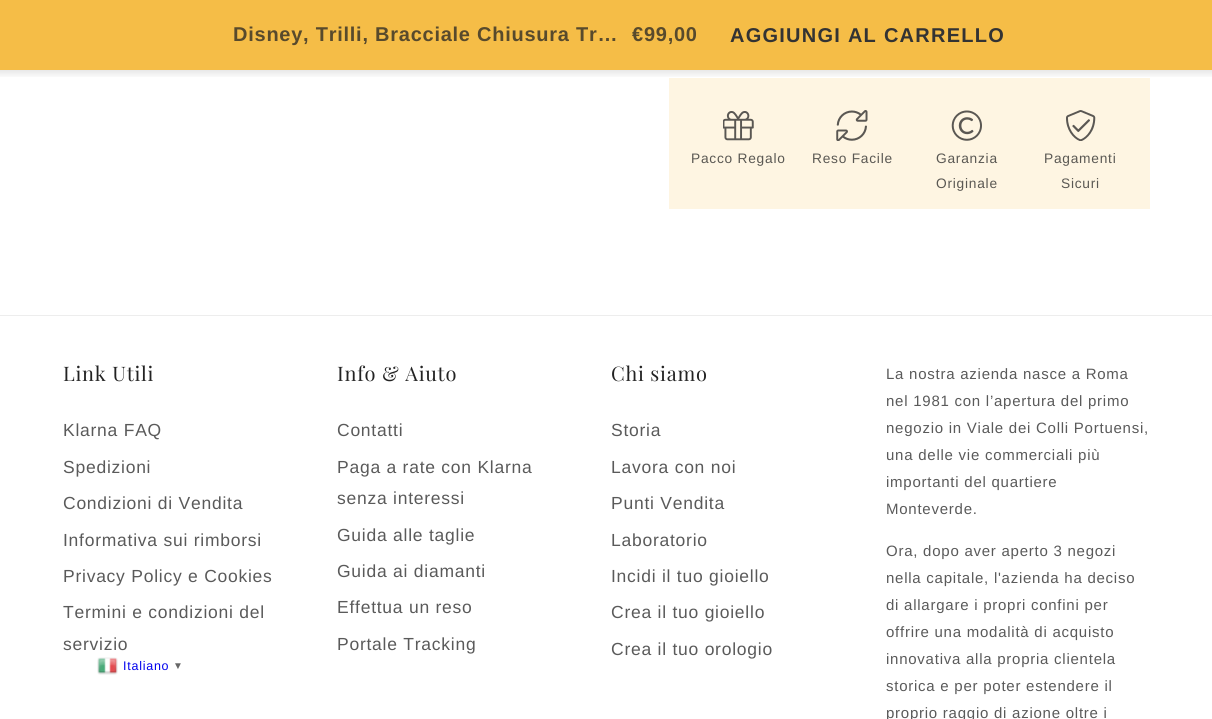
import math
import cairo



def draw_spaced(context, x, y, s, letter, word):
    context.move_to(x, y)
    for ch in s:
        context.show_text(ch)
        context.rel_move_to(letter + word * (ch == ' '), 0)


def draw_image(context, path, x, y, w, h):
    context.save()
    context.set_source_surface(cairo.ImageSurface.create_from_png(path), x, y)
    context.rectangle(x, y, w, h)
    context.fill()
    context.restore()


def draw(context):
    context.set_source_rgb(1, 1, 1)
    context.paint()
    context.set_source_rgb(245 / 255, 189 / 255, 71 / 255)
    context.rectangle(0, 0, 1212, 70)
    context.fill()
    gradient = cairo.LinearGradient(606, 70, 606, 79)
    gradient.add_color_stop_rgba(0, 0, 0, 0, 0.09)
    gradient.add_color_stop_rgba(1, 0, 0, 0, 0)
    context.set_source(gradient)
    context.rectangle(0, 70, 1212, 7)
    context.fill()
    context.set_source_rgb(254 / 255, 245 / 255, 226 / 255)
    context.rectangle(669, 78, 481, 131)
    context.fill()
    draw_image(context, "images/1.png", 723, 111, 31, 30)
    draw_image(context, "images/2.png", 836, 110, 32, 31)
    draw_image(context, "images/3.png", 951, 110, 31, 31)
    draw_image(context, "images/4.png", 1066, 110, 30, 31)
    context.set_source_rgb(237 / 255, 237 / 255, 237 / 255)
    context.rectangle(0, 315, 1212, 1)
    context.fill()
    draw_image(context, "images/5.png", 97, 657, 21, 18)
    context.select_font_face("Liberation Sans", cairo.FontSlant.NORMAL, cairo.FontWeight.BOLD)
    context.set_font_size(20)
    context.set_source_rgb(88 / 255, 74 / 255, 44 / 255)
    draw_spaced(context, 233, 41, "Disney, Trilli, Bracciale Chiusura Tr…", 0.75, 0)
    draw_spaced(context, 632, 41, "€99,00", 0.75, 0)
    context.set_source_rgb(51 / 255, 51 / 255, 51 / 255)
    draw_spaced(context, 730, 42, "AGGIUNGI AL CARRELLO", 1.25, 0)
    context.select_font_face("Liberation Sans")
    context.set_font_size(13.75)
    context.set_source_rgb(90 / 255, 88 / 255, 83 / 255)
    draw_spaced(context, 691, 163, "Pacco Regalo", 0.75, 0)
    draw_spaced(context, 812, 163, "Reso Facile", 0.75, 0)
    draw_spaced(context, 936, 163, "Garanzia", 0.75, 0)
    draw_spaced(context, 936, 188, "Originale", 0.75, 0)
    draw_spaced(context, 1044, 163, "Pagamenti", 0.75, 0)
    draw_spaced(context, 1061, 188, "Sicuri", 0.75, 0)
    context.select_font_face("Playfair Display")
    context.set_font_size(20)
    context.set_source_rgb(35 / 255, 35 / 255, 35 / 255)
    draw_spaced(context, 63, 381, "Link Utili", 0.75, 0)
    context.select_font_face("Liberation Sans")
    context.set_font_size(17.5)
    context.set_source_rgb(90 / 255, 90 / 255, 90 / 255)
    draw_spaced(context, 63, 436, "Klarna FAQ", 0.75, 0)
    draw_spaced(context, 63, 473, "Spedizioni", 0.75, 0)
    draw_spaced(context, 63, 509, "Condizioni di Vendita", 0.75, 0)
    draw_spaced(context, 63, 546, "Informativa sui rimborsi", 0.75, 0)
    draw_spaced(context, 63, 582, "Privacy Policy e Cookies", 0.75, 0)
    draw_spaced(context, 63, 618, "Termini e condizioni del", 0.75, 0)
    draw_spaced(context, 63, 650, "servizio", 0.75, 0)
    context.select_font_face("Playfair Display")
    context.set_font_size(20)
    context.set_source_rgb(35 / 255, 35 / 255, 35 / 255)
    draw_spaced(context, 337, 381, "Info & Aiuto", 0.75, 0)
    context.select_font_face("Liberation Sans")
    context.set_font_size(17.5)
    context.set_source_rgb(90 / 255, 90 / 255, 90 / 255)
    draw_spaced(context, 337, 436, "Contatti", 0.75, 0)
    draw_spaced(context, 337, 473, "Paga a rate con Klarna", 0.75, 0)
    draw_spaced(context, 337, 504, "senza interessi", 0.75, 0)
    draw_spaced(context, 337, 541, "Guida alle taglie", 0.75, 0)
    draw_spaced(context, 337, 577, "Guida ai diamanti", 0.75, 0)
    draw_spaced(context, 337, 613, "Effettua un reso", 0.75, 0)
    draw_spaced(context, 337, 650, "Portale Tracking", 0.75, 0)
    context.select_font_face("Playfair Display")
    context.set_font_size(20)
    context.set_source_rgb(35 / 255, 35 / 255, 35 / 255)
    draw_spaced(context, 611, 381, "Chi siamo", 0.75, 0)
    context.select_font_face("Liberation Sans")
    context.set_font_size(17.5)
    context.set_source_rgb(90 / 255, 90 / 255, 90 / 255)
    draw_spaced(context, 611, 436, "Storia", 0.75, 0)
    draw_spaced(context, 611, 473, "Lavora con noi", 0.75, 0)
    draw_spaced(context, 611, 509, "Punti Vendita", 0.75, 0)
    draw_spaced(context, 611, 546, "Laboratorio", 0.75, 0)
    draw_spaced(context, 611, 582, "Incidi il tuo gioiello", 0.75, 0)
    draw_spaced(context, 611, 618, "Crea il tuo gioiello", 0.75, 0)
    draw_spaced(context, 611, 655, "Crea il tuo orologio", 0.75, 0)
    context.set_font_size(15)
    draw_spaced(context, 886, 379, "La nostra azienda nasce a Roma", 0.75, 0)
    draw_spaced(context, 886, 406, "nel 1981 con l’apertura del primo", 0.75, 0)
    draw_spaced(context, 886, 433, "negozio in Viale dei Colli Portuensi,", 0.75, 0)
    draw_spaced(context, 886, 460, "una delle vie commerciali più", 0.75, 0)
    draw_spaced(context, 886, 487, "importanti del quartiere", 0.75, 0)
    draw_spaced(context, 886, 514, "Monteverde.", 0.75, 0)
    draw_spaced(context, 886, 556, "Ora, dopo aver aperto 3 negozi", 0.75, 0)
    draw_spaced(context, 886, 583, "nella capitale, l'azienda ha deciso", 0.75, 0)
    draw_spaced(context, 886, 610, "di allargare i propri confini per", 0.75, 0)
    draw_spaced(context, 886, 637, "offrire una modalità di acquisto", 0.75, 0)
    draw_spaced(context, 886, 664, "innovativa alla propria clientela", 0.75, 0)
    draw_spaced(context, 886, 691, "storica e per poter estendere il", 0.75, 0)
    draw_spaced(context, 886, 718, "proprio raggio di azione oltre i", 0.75, 0)
    context.set_font_size(12.5)
    context.set_source_rgb(0, 0, 238 / 255)
    draw_spaced(context, 123, 670, "Italiano", 0.75, 0)
    context.select_font_face("Liberation Sans", cairo.FontSlant.NORMAL, cairo.FontWeight.BOLD)
    context.set_font_size(10)
    context.set_source_rgb(102 / 255, 102 / 255, 102 / 255)
    draw_spaced(context, 173, 669, "▼", 0.75, 0)


surface = cairo.ImageSurface(cairo.Format.RGB24, 1212, 719)
context = cairo.Context(surface)
options = cairo.FontOptions()
options.set_hint_metrics(cairo.HintMetrics.OFF)
options.set_hint_style(cairo.HintStyle.NONE)
context.set_font_options(options)
context.set_miter_limit(4)
draw(context)
surface.write_to_png("out.png")
